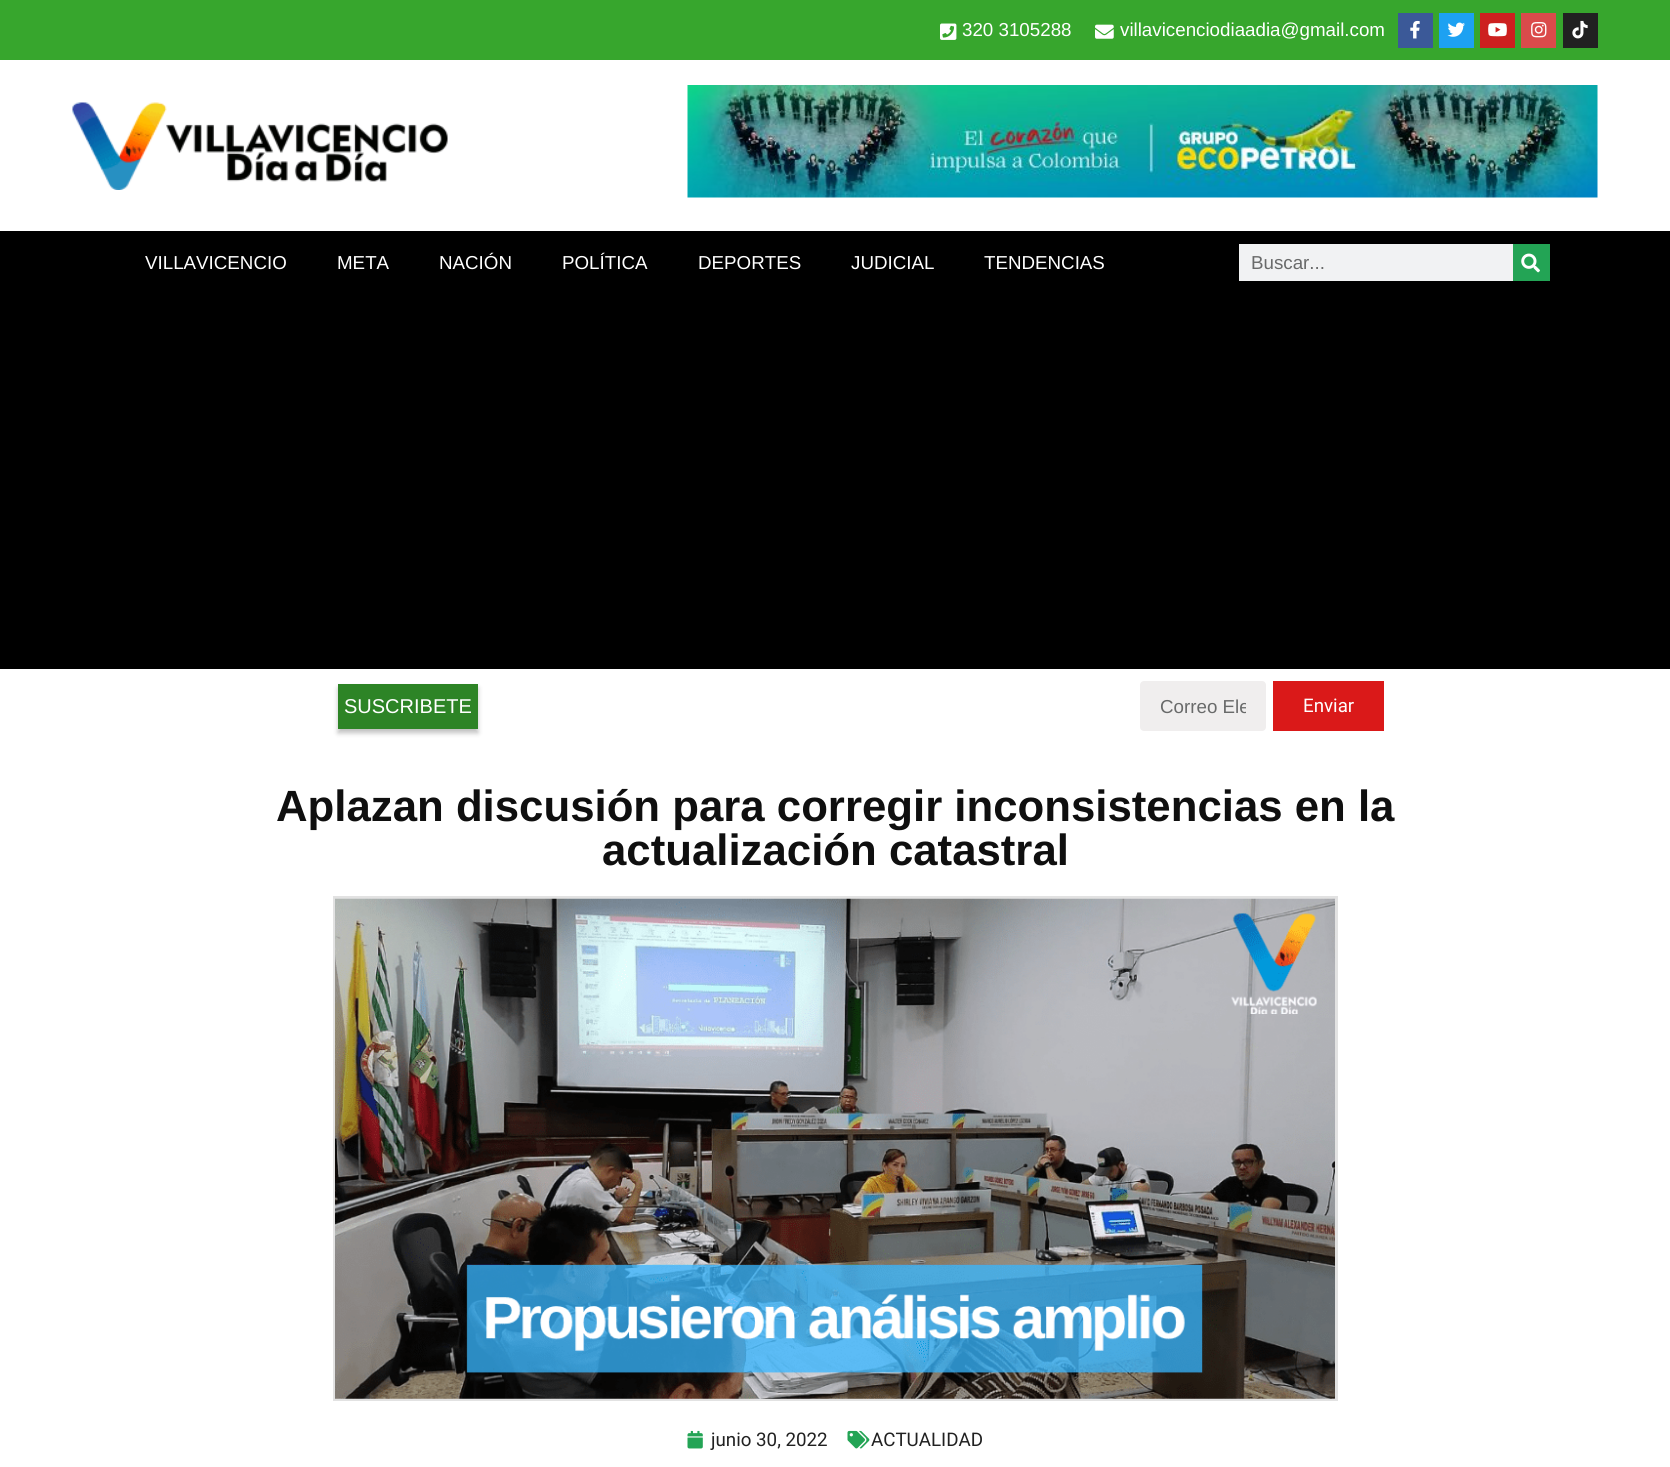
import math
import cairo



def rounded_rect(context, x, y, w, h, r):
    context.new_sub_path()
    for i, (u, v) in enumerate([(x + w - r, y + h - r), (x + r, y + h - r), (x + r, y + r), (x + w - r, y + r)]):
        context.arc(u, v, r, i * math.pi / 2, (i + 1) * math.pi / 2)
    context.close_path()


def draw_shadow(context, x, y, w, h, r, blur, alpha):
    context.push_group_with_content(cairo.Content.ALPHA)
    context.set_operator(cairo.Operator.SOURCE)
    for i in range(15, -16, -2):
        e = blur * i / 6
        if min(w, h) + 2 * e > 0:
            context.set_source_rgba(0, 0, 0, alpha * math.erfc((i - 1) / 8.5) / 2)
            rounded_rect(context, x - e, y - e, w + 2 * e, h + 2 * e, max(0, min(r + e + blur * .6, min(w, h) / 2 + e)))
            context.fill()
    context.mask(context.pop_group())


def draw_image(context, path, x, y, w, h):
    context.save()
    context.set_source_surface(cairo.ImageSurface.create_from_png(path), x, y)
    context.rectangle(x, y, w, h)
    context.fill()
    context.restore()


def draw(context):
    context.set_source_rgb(1, 1, 1)
    context.paint()
    context.set_source_rgb(55 / 255, 166 / 255, 45 / 255)
    context.rectangle(0, 0, 1670, 60)
    context.fill()
    draw_image(context, "images/1.png", 940, 23, 17, 17)
    draw_image(context, "images/2.png", 1095, 24, 19, 15)
    context.set_source_rgb(59 / 255, 89 / 255, 152 / 255)
    context.rectangle(1398, 13, 35, 35)
    context.fill()
    draw_image(context, "images/3.png", 1410, 20, 10, 19)
    context.set_source_rgb(29 / 255, 161 / 255, 242 / 255)
    context.rectangle(1439, 13, 35, 35)
    context.fill()
    draw_image(context, "images/4.png", 1447, 22, 18, 15)
    context.set_source_rgb(205 / 255, 32 / 255, 31 / 255)
    context.rectangle(1480, 13, 35, 35)
    context.fill()
    draw_image(context, "images/5.png", 1488, 23, 19, 14)
    context.set_source_rgb(218 / 255, 75 / 255, 75 / 255)
    context.rectangle(1521, 13, 35, 35)
    context.fill()
    draw_image(context, "images/6.png", 1531, 22, 16, 16)
    context.set_source_rgb(33 / 255, 33 / 255, 33 / 255)
    context.rectangle(1563, 13, 35, 35)
    context.fill()
    draw_image(context, "images/7.png", 1572, 20, 16, 19)
    draw_image(context, "images/8.png", 72, 102, 376, 88)
    draw_image(context, "images/9.png", 687, 85, 911, 113)
    context.set_source_rgb(0, 0, 0)
    context.rectangle(0, 231, 1670, 438)
    context.fill()
    context.set_source_rgb(241 / 255, 242 / 255, 243 / 255)
    context.rectangle(1239, 244, 274, 37)
    context.fill()
    context.set_source_rgb(35 / 255, 164 / 255, 85 / 255)
    context.rectangle(1513, 244, 37, 37)
    context.fill()
    draw_image(context, "images/10.png", 1521, 253, 19, 20)
    context.set_source_rgb(0, 0, 0)
    draw_shadow(context, 338, 688, 140, 45, 0, 2.5, 0.25)
    context.set_source_rgb(45 / 255, 132 / 255, 38 / 255)
    context.rectangle(338, 684, 140, 45)
    context.fill()
    context.set_source_rgb(240 / 255, 238 / 255, 238 / 255)
    rounded_rect(context, 1140, 681, 126, 50, 4)
    context.fill()
    context.set_source_rgb(218 / 255, 25 / 255, 25 / 255)
    context.rectangle(1273, 681, 111, 50)
    context.fill()
    context.rectangle(334.5, 897.5, 1002, 502)
    context.set_source_rgb(226 / 255, 226 / 255, 226 / 255)
    context.set_line_width(3)
    context.stroke()
    draw_image(context, "images/11.png", 335, 898, 1000, 501)
    draw_image(context, "images/12.png", 687, 1430, 16, 19)
    draw_image(context, "images/13.png", 847, 1430, 23, 19)
    context.select_font_face("Liberation Sans")
    context.set_font_size(18.75)
    context.set_source_rgb(1, 1, 1)
    context.move_to(962, 36)
    context.show_text("320 3105288")
    context.move_to(1120, 36)
    context.show_text("villavicenciodiaadia@gmail.com")
    context.move_to(145, 269)
    context.show_text("VILLAVICENCIO")
    context.move_to(337, 269)
    context.show_text("META")
    context.move_to(439, 269)
    context.show_text("NACIÓN")
    context.move_to(562, 269)
    context.show_text("POLÍTICA")
    context.move_to(698, 269)
    context.show_text("DEPORTES")
    context.move_to(851, 269)
    context.show_text("JUDICIAL")
    context.move_to(984, 269)
    context.show_text("TENDENCIAS")
    context.set_source_rgb(105 / 255, 106 / 255, 106 / 255)
    context.move_to(1251, 269)
    context.show_text("Buscar...")
    context.set_font_size(20)
    context.set_source_rgb(1, 1, 1)
    context.move_to(344, 713)
    context.show_text("SUSCRIBETE")
    context.save()
    context.rectangle(1160, 696, 86, 22)
    context.clip()
    context.set_font_size(18.75)
    context.set_source_rgb(105 / 255, 106 / 255, 106 / 255)
    context.move_to(1160, 713)
    context.show_text("Correo Ele")
    context.restore()
    context.select_font_face("Roboto")
    context.set_font_size(18.75)
    context.move_to(1303, 712)
    context.show_text("Enviar")
    context.select_font_face("Liberation Sans", cairo.FontSlant.NORMAL, cairo.FontWeight.BOLD)
    context.set_font_size(43.75)
    context.set_source_rgb(15 / 255, 15 / 255, 15 / 255)
    context.move_to(276, 821)
    context.show_text("Aplazan discusión para corregir inconsistencias en la")
    context.move_to(602, 865)
    context.show_text("actualización catastral")
    context.select_font_face("Roboto")
    context.set_font_size(18.75)
    context.set_source_rgb(33 / 255, 33 / 255, 33 / 255)
    context.move_to(711, 1446)
    context.show_text("junio 30, 2022")
    context.move_to(871, 1446)
    context.show_text("ACTUALIDAD")


surface = cairo.ImageSurface(cairo.Format.RGB24, 1670, 1467)
context = cairo.Context(surface)
options = cairo.FontOptions()
options.set_hint_metrics(cairo.HintMetrics.OFF)
options.set_hint_style(cairo.HintStyle.NONE)
context.set_font_options(options)
context.set_miter_limit(4)
draw(context)
surface.write_to_png("out.png")
